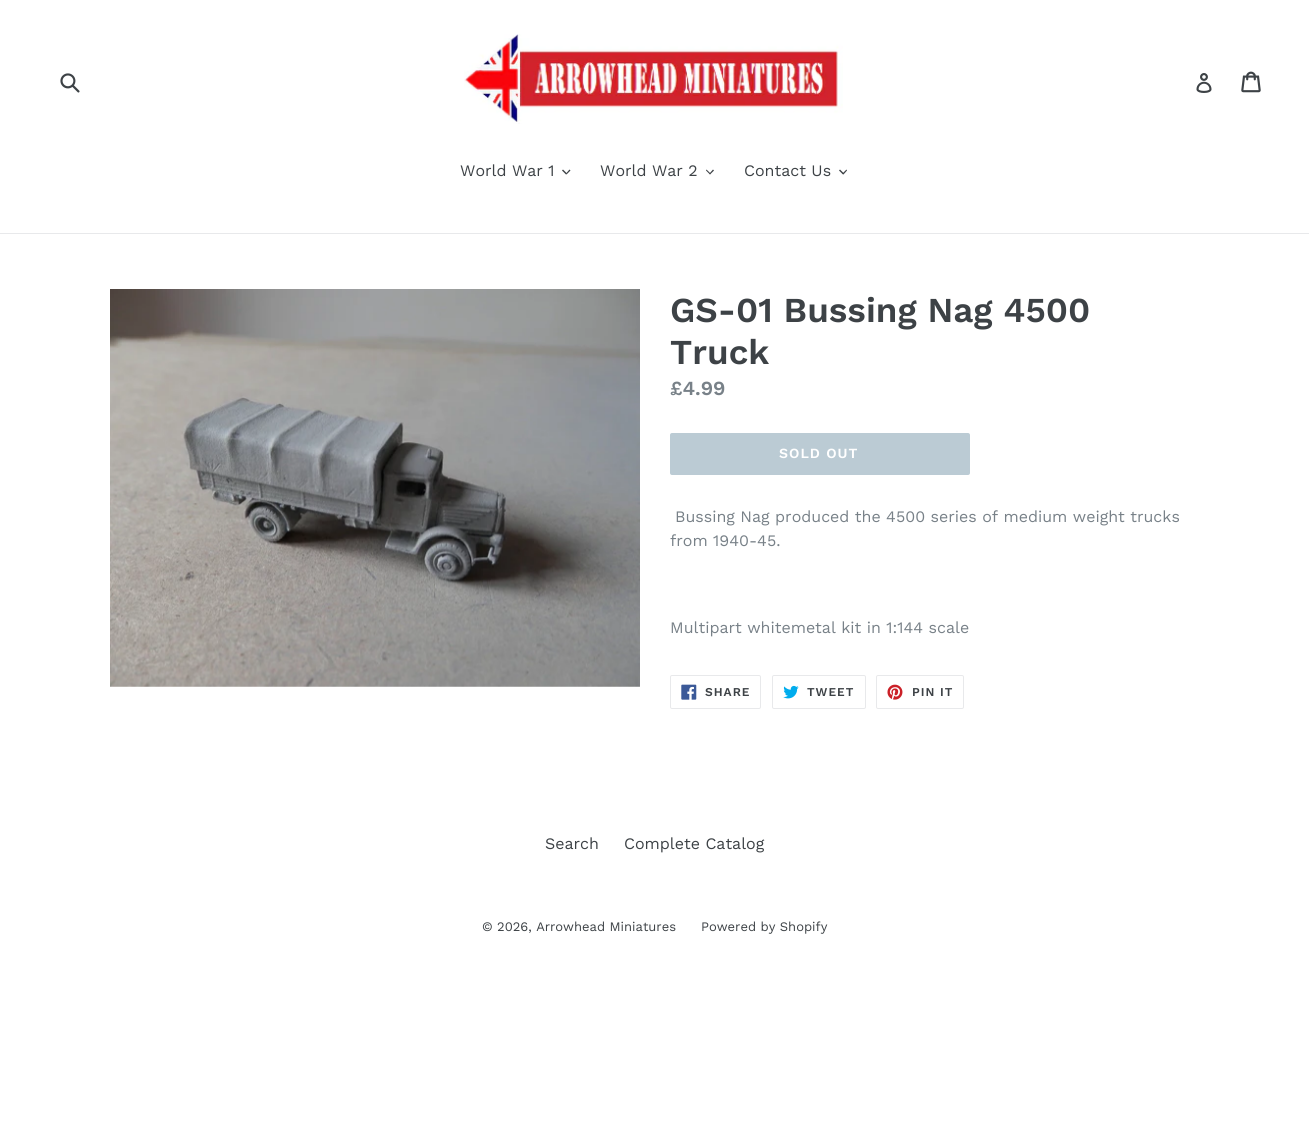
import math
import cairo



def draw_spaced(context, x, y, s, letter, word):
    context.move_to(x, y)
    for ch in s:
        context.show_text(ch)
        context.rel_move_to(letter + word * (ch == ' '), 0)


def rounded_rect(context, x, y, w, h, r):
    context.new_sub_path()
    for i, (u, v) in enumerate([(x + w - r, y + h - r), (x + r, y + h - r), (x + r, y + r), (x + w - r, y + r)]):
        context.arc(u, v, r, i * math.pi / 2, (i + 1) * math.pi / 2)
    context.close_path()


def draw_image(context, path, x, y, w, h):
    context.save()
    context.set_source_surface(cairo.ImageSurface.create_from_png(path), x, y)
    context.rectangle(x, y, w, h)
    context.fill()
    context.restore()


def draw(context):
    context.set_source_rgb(1, 1, 1)
    context.paint()
    draw_image(context, "images/1.png", 60, 73, 20, 20)
    draw_image(context, "images/2.png", 464, 34, 379, 90)
    draw_image(context, "images/3.png", 1196, 73, 16, 20)
    draw_image(context, "images/4.png", 1241, 71, 20, 22)
    context.set_source_rgb(232 / 255, 233 / 255, 235 / 255)
    context.rectangle(0, 233, 1309, 1)
    context.fill()
    context.set_source_rgb(61 / 255, 66 / 255, 70 / 255)
    context.new_path()
    context.move_to(569.5, 169.5)
    context.line_to(570.5, 170.5)
    context.line_to(566.5, 174.5)
    context.line_to(566, 173.5)
    context.close_path()
    context.fill()
    context.new_path()
    context.move_to(563, 169.5)
    context.line_to(567, 173.5)
    context.line_to(566, 174.5)
    context.line_to(562, 170.5)
    context.close_path()
    context.fill()
    context.new_path()
    context.move_to(713, 169.5)
    context.line_to(714, 170.5)
    context.line_to(710, 174.5)
    context.line_to(709.5, 173.5)
    context.close_path()
    context.fill()
    context.new_path()
    context.move_to(706.5, 169.5)
    context.line_to(710.5, 173.5)
    context.line_to(710, 174.5)
    context.line_to(706, 170.5)
    context.close_path()
    context.fill()
    context.new_path()
    context.move_to(846.5, 169.5)
    context.line_to(847, 170.5)
    context.line_to(843.5, 174.5)
    context.line_to(842.5, 173.5)
    context.close_path()
    context.fill()
    context.new_path()
    context.move_to(840, 169.5)
    context.line_to(844, 173.5)
    context.line_to(843, 174.5)
    context.line_to(839, 170.5)
    context.close_path()
    context.fill()
    draw_image(context, "images/5.png", 110, 289, 530, 398)
    context.set_source_rgb(187 / 255, 203 / 255, 212 / 255)
    rounded_rect(context, 670, 433, 300, 42, 2)
    context.fill()
    rounded_rect(context, 670.5, 675.5, 90, 33, 1.5)
    context.set_source_rgb(232 / 255, 233 / 255, 235 / 255)
    context.set_line_width(1)
    context.stroke()
    draw_image(context, "images/6.png", 681, 684, 16, 16)
    rounded_rect(context, 772.5, 675.5, 93, 33, 1.5)
    context.stroke()
    draw_image(context, "images/7.png", 783, 685, 16, 14)
    rounded_rect(context, 876.5, 675.5, 87, 33, 1.5)
    context.stroke()
    draw_image(context, "images/8.png", 887, 684, 16, 16)
    context.select_font_face("Work Sans")
    context.set_font_size(16)
    context.set_source_rgb(61 / 255, 66 / 255, 70 / 255)
    context.move_to(460, 176)
    context.show_text("World War 1")
    context.move_to(600, 176)
    context.show_text("World War 2")
    context.move_to(744, 176)
    context.show_text("Contact Us")
    context.select_font_face("Work Sans SemiBold")
    context.set_font_size(35)
    context.move_to(670, 322)
    context.show_text("GS-01 Bussing Nag 4500")
    context.move_to(670, 364)
    context.show_text("Truck")
    context.set_font_size(20)
    context.set_source_rgb(120 / 255, 129 / 255, 136 / 255)
    context.move_to(670, 395)
    context.show_text("£4.99")
    context.set_font_size(14)
    context.set_source_rgb(1, 1, 1)
    draw_spaced(context, 779, 458, "SOLD OUT", 1, 0)
    context.select_font_face("Work Sans")
    context.set_font_size(16)
    context.set_source_rgb(120 / 255, 129 / 255, 136 / 255)
    context.move_to(675, 522)
    context.show_text("Bussing Nag produced the 4500 series of medium weight trucks")
    context.move_to(670, 546)
    context.show_text("from 1940-45.")
    context.move_to(670, 633)
    context.show_text("Multipart whitemetal kit in 1:144 scale")
    context.select_font_face("Work Sans SemiBold")
    context.set_font_size(12)
    context.set_source_rgb(61 / 255, 66 / 255, 70 / 255)
    draw_spaced(context, 705, 696, "SHARE", 1, 0)
    draw_spaced(context, 807, 696, "TWEET", 1, 0)
    draw_spaced(context, 912, 696, "PIN IT", 1, 0)
    context.select_font_face("Work Sans")
    context.set_font_size(16)
    context.move_to(545, 849)
    context.show_text("Search")
    context.move_to(624, 849)
    context.show_text("Complete Catalog")
    context.set_font_size(13)
    context.move_to(482, 931)
    context.show_text("© 2026, Arrowhead Miniatures")
    context.move_to(701, 931)
    context.show_text("Powered by Shopify")


surface = cairo.ImageSurface(cairo.Format.RGB24, 1309, 1137)
context = cairo.Context(surface)
options = cairo.FontOptions()
options.set_hint_metrics(cairo.HintMetrics.OFF)
options.set_hint_style(cairo.HintStyle.NONE)
context.set_font_options(options)
context.set_miter_limit(4)
draw(context)
surface.write_to_png("out.png")
